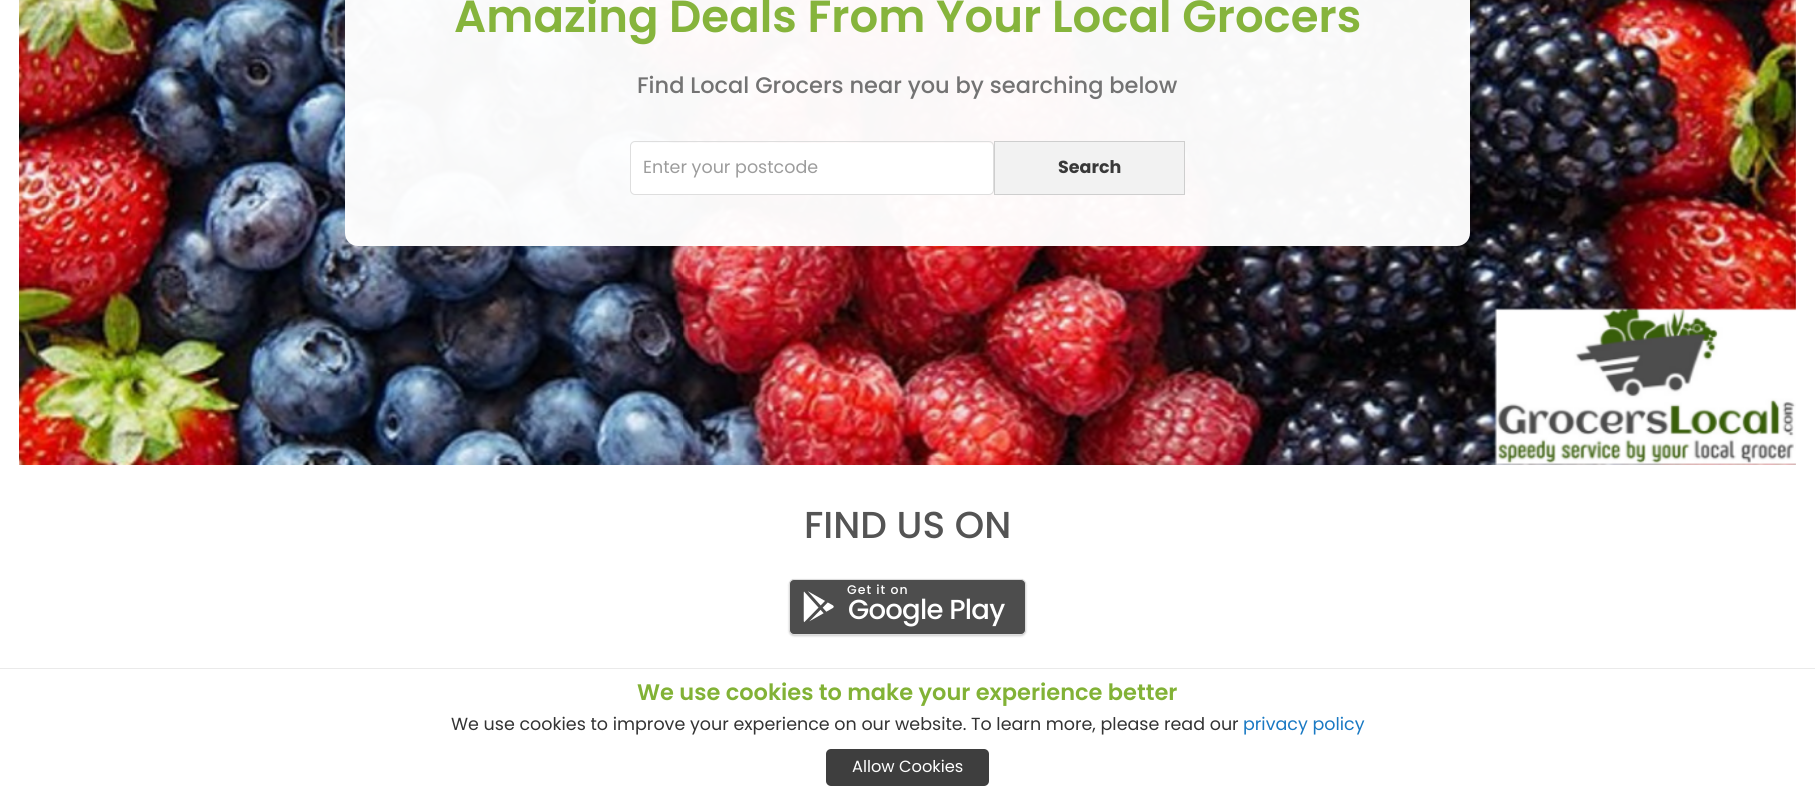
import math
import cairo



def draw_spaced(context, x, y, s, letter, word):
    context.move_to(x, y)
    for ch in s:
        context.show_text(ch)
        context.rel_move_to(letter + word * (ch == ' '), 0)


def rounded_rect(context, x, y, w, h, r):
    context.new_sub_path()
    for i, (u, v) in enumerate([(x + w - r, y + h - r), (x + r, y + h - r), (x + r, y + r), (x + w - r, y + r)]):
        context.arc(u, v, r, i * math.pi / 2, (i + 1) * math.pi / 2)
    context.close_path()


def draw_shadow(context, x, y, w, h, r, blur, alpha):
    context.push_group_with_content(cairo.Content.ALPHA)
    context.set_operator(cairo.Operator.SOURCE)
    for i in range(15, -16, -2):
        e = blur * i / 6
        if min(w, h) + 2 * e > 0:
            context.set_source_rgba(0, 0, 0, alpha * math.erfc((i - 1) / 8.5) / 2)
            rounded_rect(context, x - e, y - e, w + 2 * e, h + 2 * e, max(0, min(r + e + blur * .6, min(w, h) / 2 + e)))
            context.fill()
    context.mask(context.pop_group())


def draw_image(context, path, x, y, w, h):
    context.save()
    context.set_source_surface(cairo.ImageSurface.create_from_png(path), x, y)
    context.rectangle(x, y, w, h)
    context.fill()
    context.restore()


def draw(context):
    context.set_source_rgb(1, 1, 1)
    context.paint()
    draw_image(context, "images/1.png", 19, 0, 1777, 465)
    context.set_source_rgba(1, 1, 1, 0.97)
    rounded_rect(context, 345, -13, 1125, 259, 13)
    context.fill()
    rounded_rect(context, 631, 143, 362, 51, 4)
    context.fill()
    rounded_rect(context, 630.5, 141.5, 363, 53, 4.5)
    context.set_source_rgba(221 / 255, 221 / 255, 221 / 255, 0.97)
    context.set_line_width(1)
    context.stroke()
    context.set_source_rgba(242 / 255, 242 / 255, 242 / 255, 0.97)
    context.rectangle(994.5, 141.5, 190, 53)
    context.fill_preserve()
    context.set_source_rgb(206 / 255, 206 / 255, 206 / 255)
    context.stroke()
    context.set_source_rgb(0, 0, 0)
    draw_shadow(context, 789, 580, 237, 56, 5, 1, 0.2)
    context.set_source_rgb(77 / 255, 77 / 255, 77 / 255)
    rounded_rect(context, 789.5, 579.5, 236, 55, 4.5)
    context.fill_preserve()
    context.set_source_rgb(221 / 255, 221 / 255, 221 / 255)
    context.stroke()
    draw_image(context, "images/2.png", 803, 591, 31, 32)
    context.set_source_rgb(234 / 255, 234 / 255, 234 / 255)
    context.rectangle(0, 668, 1815, 1)
    context.fill()
    context.set_source_rgb(62 / 255, 62 / 255, 62 / 255)
    rounded_rect(context, 826, 749, 163, 37, 5)
    context.fill()
    context.select_font_face("Poppins SemiBold")
    context.set_font_size(45)
    context.set_source_rgb(134 / 255, 180 / 255, 60 / 255)
    context.move_to(454, 32)
    context.show_text("Amazing Deals From Your Local Grocers")
    context.select_font_face("Poppins Medium")
    context.set_font_size(22.5)
    context.set_source_rgb(115 / 255, 115 / 255, 115 / 255)
    context.move_to(637, 93)
    context.show_text("Find Local Grocers near you by searching below")
    context.select_font_face("Poppins")
    context.set_font_size(17.5)
    context.set_source_rgb(156 / 255, 156 / 255, 156 / 255)
    context.move_to(643, 173)
    context.show_text("Enter your postcode")
    context.select_font_face("Poppins", cairo.FontSlant.NORMAL, cairo.FontWeight.BOLD)
    context.set_source_rgb(57 / 255, 57 / 255, 57 / 255)
    context.move_to(1058, 173)
    context.show_text("Search")
    context.select_font_face("Poppins Medium")
    context.set_font_size(37.5)
    context.set_source_rgb(84 / 255, 84 / 255, 84 / 255)
    context.move_to(804, 538)
    context.show_text("FIND US ON")
    context.set_font_size(12.5)
    context.set_source_rgb(1, 1, 1)
    draw_spaced(context, 847, 594, "Get it on", 1, 0)
    context.set_font_size(27.5)
    draw_spaced(context, 848, 619, "Google Play", -0.75, 0)
    context.select_font_face("Poppins SemiBold")
    context.set_font_size(22.5)
    context.set_source_rgb(130 / 255, 178 / 255, 54 / 255)
    context.move_to(637, 700)
    context.show_text("We use cookies to make your experience better")
    context.select_font_face("Poppins")
    context.set_font_size(17.5)
    context.set_source_rgb(51 / 255, 51 / 255, 51 / 255)
    context.move_to(451, 730)
    context.show_text("We use cookies to improve your experience on our website. To learn more, please read our")
    context.set_source_rgb(25 / 255, 121 / 255, 195 / 255)
    context.move_to(1243, 730)
    context.show_text("privacy policy")
    context.set_font_size(16.25)
    context.set_source_rgb(1, 1, 1)
    context.move_to(852, 772)
    context.show_text("Allow Cookies")


surface = cairo.ImageSurface(cairo.Format.RGB24, 1815, 800)
context = cairo.Context(surface)
options = cairo.FontOptions()
options.set_hint_metrics(cairo.HintMetrics.OFF)
options.set_hint_style(cairo.HintStyle.NONE)
context.set_font_options(options)
context.set_miter_limit(4)
draw(context)
surface.write_to_png("out.png")
